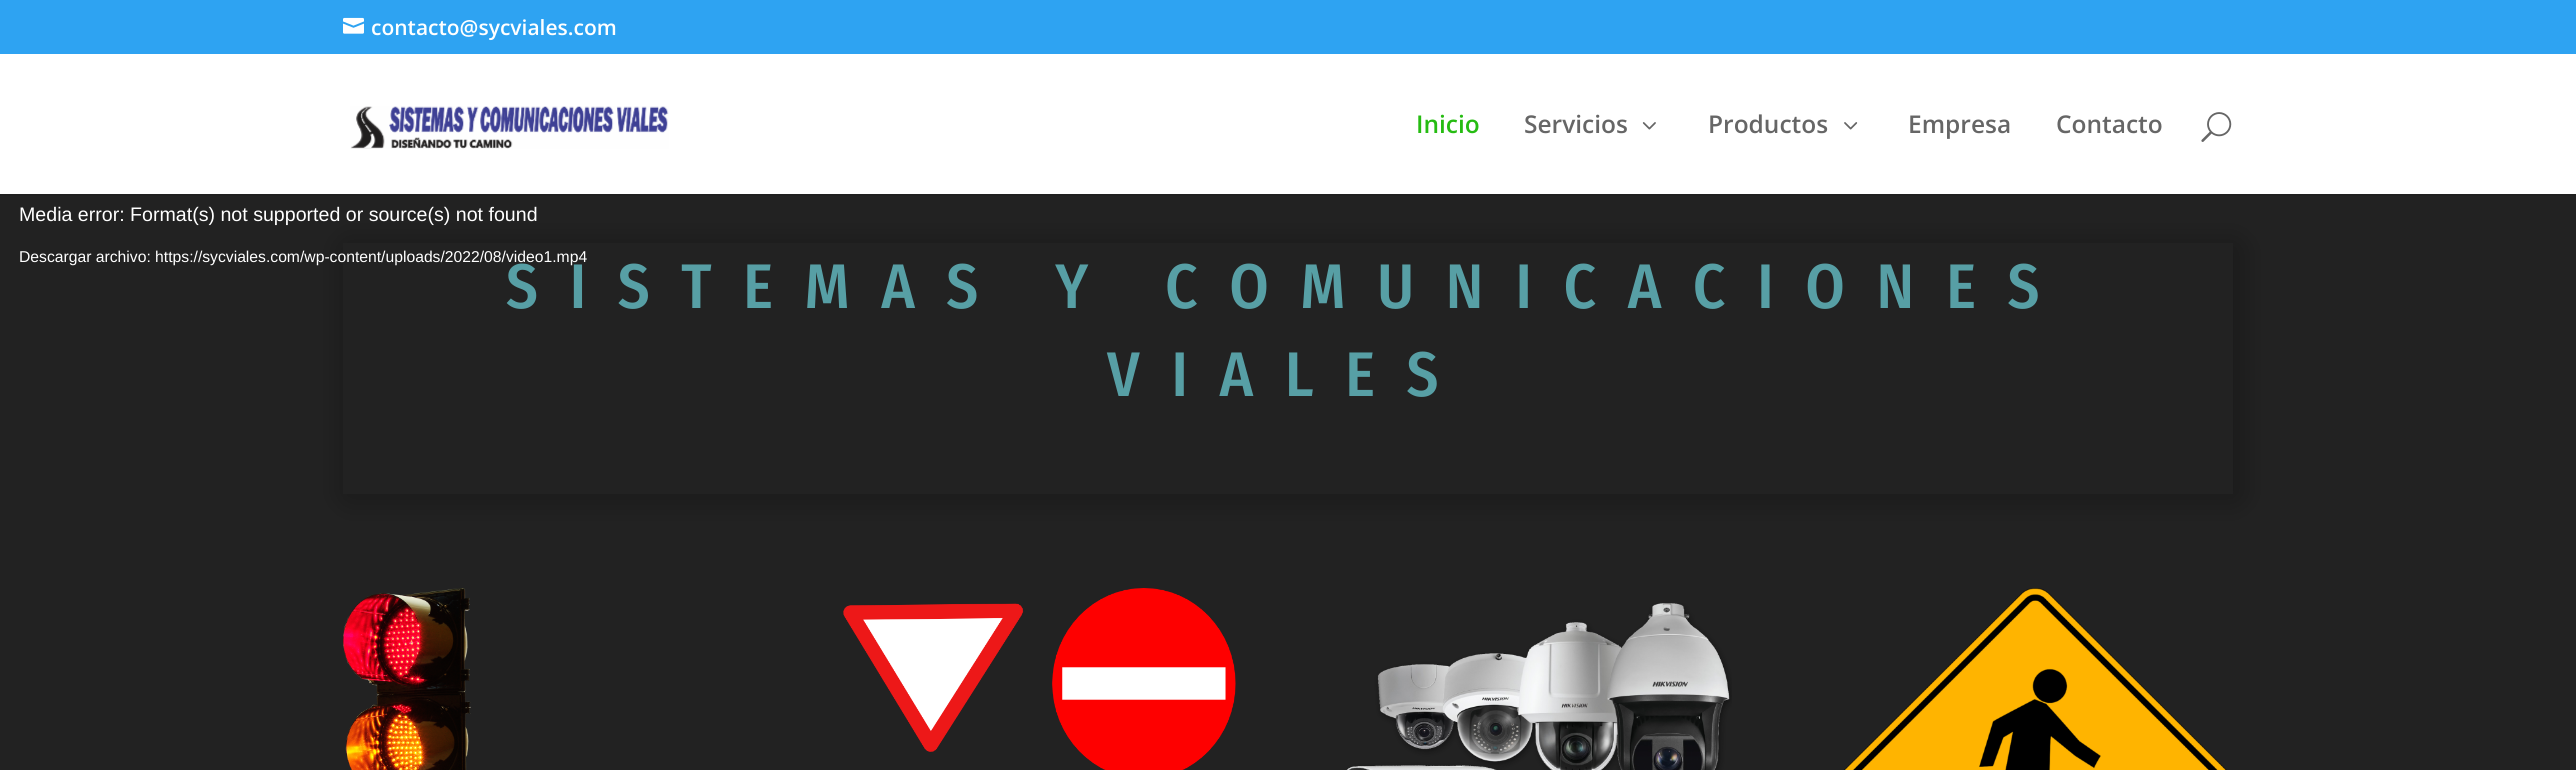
import math
import cairo



def draw_spaced(context, x, y, s, letter, word):
    context.move_to(x, y)
    for ch in s:
        context.show_text(ch)
        context.rel_move_to(letter + word * (ch == ' '), 0)


def rounded_rect(context, x, y, w, h, r):
    context.new_sub_path()
    for i, (u, v) in enumerate([(x + w - r, y + h - r), (x + r, y + h - r), (x + r, y + r), (x + w - r, y + r)]):
        context.arc(u, v, r, i * math.pi / 2, (i + 1) * math.pi / 2)
    context.close_path()


def draw_shadow(context, x, y, w, h, r, blur, alpha):
    context.push_group_with_content(cairo.Content.ALPHA)
    context.set_operator(cairo.Operator.SOURCE)
    for i in range(15, -16, -2):
        e = blur * i / 6
        if min(w, h) + 2 * e > 0:
            context.set_source_rgba(0, 0, 0, alpha * math.erfc((i - 1) / 8.5) / 2)
            rounded_rect(context, x - e, y - e, w + 2 * e, h + 2 * e, max(0, min(r + e + blur * .6, min(w, h) / 2 + e)))
            context.fill()
    context.mask(context.pop_group())


def draw_image(context, path, x, y, w, h):
    context.save()
    context.set_source_surface(cairo.ImageSurface.create_from_png(path), x, y)
    context.rectangle(x, y, w, h)
    context.fill()
    context.restore()


def draw(context):
    context.set_source_rgb(1, 1, 1)
    context.paint()
    context.set_source_rgb(46 / 255, 163 / 255, 242 / 255)
    context.rectangle(0, 0, 2576, 54)
    context.fill()
    draw_image(context, "images/1.png", 343, 17, 21, 17)
    context.set_source_rgb(31 / 255, 31 / 255, 31 / 255)
    context.rectangle(0, 194, 2576, 2)
    context.fill()
    draw_image(context, "images/2.png", 350, 106, 319, 43)
    draw_image(context, "images/3.png", 1642, 122, 14, 8)
    draw_image(context, "images/4.png", 1844, 122, 14, 8)
    draw_image(context, "images/5.png", 2201, 112, 31, 30)
    context.set_source_rgb(34 / 255, 34 / 255, 34 / 255)
    context.rectangle(0, 196, 2576, 574)
    context.fill()
    context.save()
    context.set_fill_rule(cairo.FillRule.EVEN_ODD)
    context.new_path()
    context.move_to(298, 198)
    context.line_to(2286, 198)
    context.line_to(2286, 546)
    context.line_to(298, 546)
    context.close_path()
    context.move_to(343, 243)
    context.line_to(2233, 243)
    context.line_to(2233, 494)
    context.line_to(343, 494)
    context.close_path()
    context.clip()
    context.set_source_rgb(0, 0, 0)
    draw_shadow(context, 347, 247, 1890, 250, 0, 16, 0.3)
    context.restore()
    draw_image(context, "images/6.png", 343, 588, 128, 182)
    draw_image(context, "images/7.png", 843, 588, 393, 182)
    draw_image(context, "images/8.png", 1346, 603, 386, 167)
    draw_image(context, "images/9.png", 1844, 588, 383, 182)
    context.select_font_face("Open Sans SemiBold")
    context.set_font_size(21)
    context.set_source_rgb(1, 1, 1)
    context.move_to(371, 35)
    context.show_text("contacto@sycviales.com")
    context.set_font_size(24.5)
    context.set_source_rgb(38 / 255, 188 / 255, 18 / 255)
    context.move_to(1416, 133)
    context.show_text("Inicio")
    context.set_source_rgb(102 / 255, 102 / 255, 102 / 255)
    context.move_to(1524, 133)
    context.show_text("Servicios")
    context.move_to(1708, 133)
    context.show_text("Productos")
    context.move_to(1908, 133)
    context.show_text("Empresa")
    context.move_to(2056, 133)
    context.show_text("Contacto")
    context.select_font_face("Liberation Sans")
    context.set_font_size(19.6)
    context.set_source_rgb(1, 1, 1)
    context.move_to(19, 221)
    context.show_text("Media error: Format(s) not supported or source(s) not found")
    context.set_font_size(15.7)
    context.move_to(19, 262)
    context.show_text("Descargar archivo: https://sycviales.com/wp-content/uploads/2022/08/video1.mp4")
    context.select_font_face("Fira Sans Condensed Medium")
    context.set_font_size(63)
    context.set_source_rgb(87 / 255, 159 / 255, 165 / 255)
    draw_spaced(context, 506, 308, "SISTEMAS Y COMUNICACIONES", 31.5, 0)
    draw_spaced(context, 1107, 396, "VIALES", 31.5, 0)


surface = cairo.ImageSurface(cairo.Format.RGB24, 2576, 770)
context = cairo.Context(surface)
options = cairo.FontOptions()
options.set_hint_metrics(cairo.HintMetrics.OFF)
options.set_hint_style(cairo.HintStyle.NONE)
context.set_font_options(options)
context.set_miter_limit(4)
draw(context)
surface.write_to_png("out.png")
